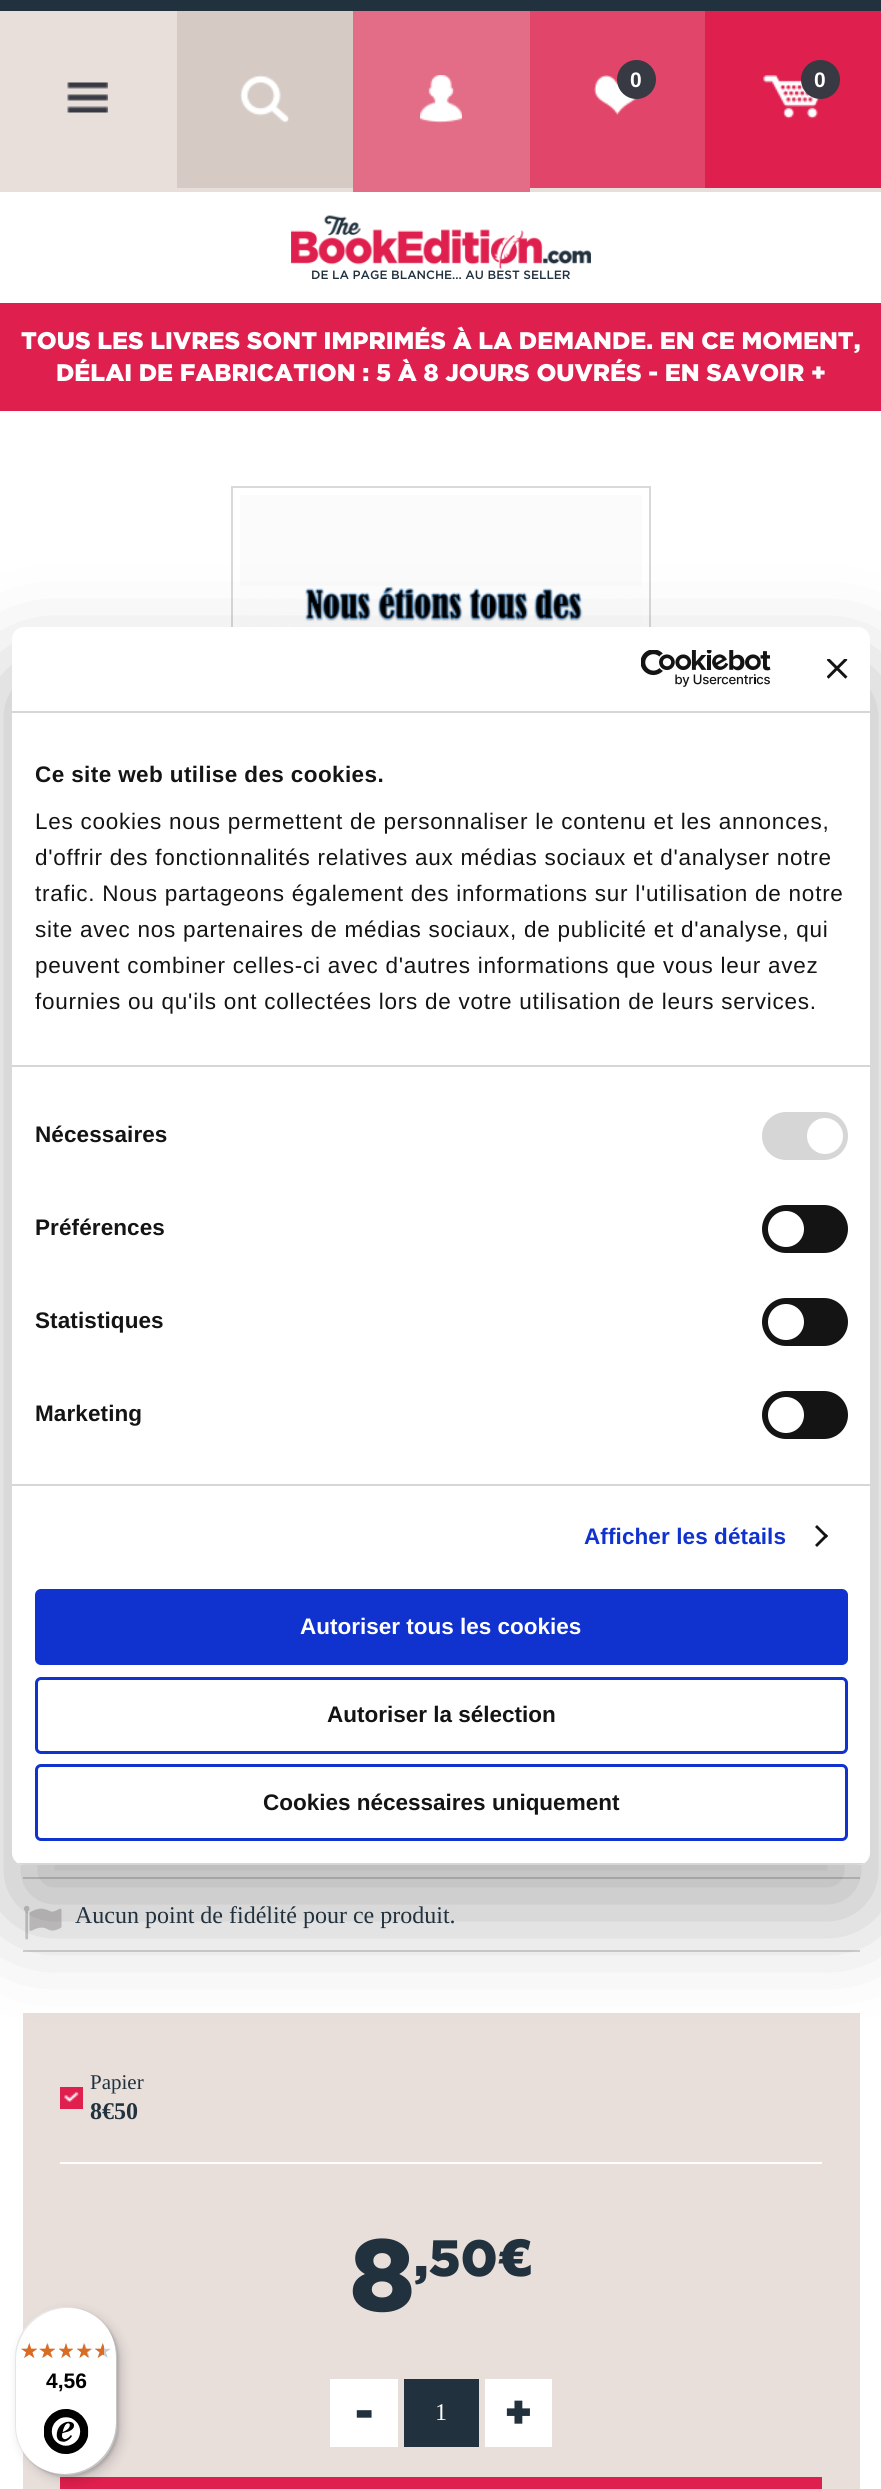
import math
import cairo



def draw_spaced(context, x, y, s, letter, word):
    context.move_to(x, y)
    for ch in s:
        context.show_text(ch)
        context.rel_move_to(letter + word * (ch == ' '), 0)


def rounded_rect(context, x, y, w, h, r):
    context.new_sub_path()
    for i, (u, v) in enumerate([(x + w - r, y + h - r), (x + r, y + h - r), (x + r, y + r), (x + w - r, y + r)]):
        context.arc(u, v, r, i * math.pi / 2, (i + 1) * math.pi / 2)
    context.close_path()


def draw_shadow(context, x, y, w, h, r, blur, alpha):
    context.push_group_with_content(cairo.Content.ALPHA)
    context.set_operator(cairo.Operator.SOURCE)
    for i in range(15, -16, -2):
        e = blur * i / 6
        if min(w, h) + 2 * e > 0:
            context.set_source_rgba(0, 0, 0, alpha * math.erfc((i - 1) / 8.5) / 2)
            rounded_rect(context, x - e, y - e, w + 2 * e, h + 2 * e, max(0, min(r + e + blur * .6, min(w, h) / 2 + e)))
            context.fill()
    context.mask(context.pop_group())


def draw_image(context, path, x, y, w, h):
    context.save()
    context.set_source_surface(cairo.ImageSurface.create_from_png(path), x, y)
    context.rectangle(x, y, w, h)
    context.fill()
    context.restore()


def draw(context):
    context.set_source_rgb(1, 1, 1)
    context.paint()
    context.set_source_rgb(33 / 255, 49 / 255, 62 / 255)
    context.rectangle(0, 0, 881, 11)
    context.fill()
    context.set_source_rgb(232 / 255, 223 / 255, 219 / 255)
    context.rectangle(0, 11, 881, 181)
    context.fill()
    context.set_source_rgb(213 / 255, 202 / 255, 196 / 255)
    context.rectangle(177, 11, 176, 177)
    context.fill()
    draw_image(context, "images/1.png", 240, 75, 49, 48)
    context.set_source_rgb(227 / 255, 108 / 255, 134 / 255)
    context.rectangle(353, 11, 177, 181)
    context.fill()
    draw_image(context, "images/2.png", 420, 75, 42, 48)
    context.set_source_rgb(225 / 255, 69 / 255, 105 / 255)
    context.rectangle(530, 11, 175, 177)
    context.fill()
    draw_image(context, "images/3.png", 594, 75, 43, 40)
    context.set_source_rgb(55 / 255, 57 / 255, 67 / 255)
    context.arc(636.5, 79.5, 19.5, 0, 2 * math.pi)
    context.fill()
    context.set_source_rgb(223 / 255, 31 / 255, 77 / 255)
    context.rectangle(705, 11, 176, 177)
    context.fill()
    draw_image(context, "images/4.png", 763, 75, 57, 44)
    context.set_source_rgb(55 / 255, 57 / 255, 67 / 255)
    context.arc(820.5, 79.5, 19.5, 0, 2 * math.pi)
    context.fill()
    draw_image(context, "images/5.png", 67, 82, 41, 31)
    draw_image(context, "images/6.png", 291, 215, 300, 54)
    context.set_source_rgb(223 / 255, 31 / 255, 77 / 255)
    context.rectangle(0, 303, 881, 108)
    context.fill()
    context.rectangle(232, 487, 418, 642)
    context.set_source_rgb(219 / 255, 217 / 255, 216 / 255)
    context.stroke()
    context.set_source_rgb(251 / 255, 251 / 255, 251 / 255)
    context.rectangle(240, 495, 402, 91)
    context.fill()
    draw_image(context, "images/7.png", 240, 586, 402, 41)
    context.set_source_rgb(214 / 255, 212 / 255, 212 / 255)
    context.rectangle(23, 1877, 837, 2)
    context.fill()
    context.rectangle(23, 1950, 837, 2)
    context.fill()
    draw_image(context, "images/8.png", 24, 1905, 38, 35)
    context.set_source_rgb(232 / 255, 223 / 255, 219 / 255)
    context.rectangle(23, 2013, 837, 476)
    context.fill()
    context.set_source_rgb(1, 1, 1)
    context.rectangle(60, 2162, 762, 2)
    context.fill()
    context.set_source_rgb(223 / 255, 31 / 255, 77 / 255)
    context.rectangle(60, 2087, 23, 22)
    context.fill()
    draw_image(context, "images/9.png", 64, 2092, 15, 10)
    context.set_source_rgb(1, 1, 1)
    context.rectangle(330, 2379, 68, 68)
    context.fill()
    context.set_source_rgb(33 / 255, 49 / 255, 62 / 255)
    context.rectangle(404, 2379, 75, 68)
    context.fill()
    context.set_source_rgb(1, 1, 1)
    context.rectangle(485, 2379, 67, 68)
    context.fill()
    context.set_source_rgb(223 / 255, 31 / 255, 77 / 255)
    context.rectangle(60, 2477, 762, 12)
    context.fill()
    context.set_source_rgb(0, 0, 0)
    draw_shadow(context, 12, 675, 858, 1238, 12, 51, 0.3)
    context.set_source_rgb(1, 1, 1)
    rounded_rect(context, 12, 627, 858, 1238, 12)
    context.fill()
    context.set_source_rgb(214 / 255, 214 / 255, 214 / 255)
    context.rectangle(12, 711, 858, 2)
    context.fill()
    draw_image(context, "images/10.png", 641, 650, 130, 37)
    draw_image(context, "images/11.png", 827, 659, 21, 20)
    context.rectangle(12, 1065, 858, 2)
    context.fill()
    context.rectangle(12, 1484, 858, 2)
    context.fill()
    rounded_rect(context, 762, 1112, 86, 48, 24)
    context.fill()
    context.set_source_rgb(1, 1, 1)
    context.arc(825, 1136, 18, 0, 2 * math.pi)
    context.fill()
    context.set_source_rgb(20 / 255, 20 / 255, 20 / 255)
    rounded_rect(context, 762, 1205, 86, 48, 24)
    context.fill()
    context.set_source_rgb(1, 1, 1)
    context.arc(786, 1229, 18, 0, 2 * math.pi)
    context.fill()
    context.set_source_rgb(20 / 255, 20 / 255, 20 / 255)
    rounded_rect(context, 762, 1298, 86, 48, 24)
    context.fill()
    context.set_source_rgb(1, 1, 1)
    context.arc(786, 1322, 18, 0, 2 * math.pi)
    context.fill()
    context.set_source_rgb(20 / 255, 20 / 255, 20 / 255)
    rounded_rect(context, 762, 1391, 86, 48, 24)
    context.fill()
    context.set_source_rgb(1, 1, 1)
    context.arc(786, 1415, 18, 0, 2 * math.pi)
    context.fill()
    context.set_source_rgb(20 / 255, 20 / 255, 20 / 255)
    context.new_path()
    context.move_to(817, 1525)
    context.line_to(828, 1536)
    context.line_to(826, 1538)
    context.line_to(815, 1527)
    context.close_path()
    context.fill()
    context.new_path()
    context.move_to(826, 1534)
    context.line_to(828, 1536)
    context.line_to(817, 1547)
    context.line_to(815, 1545)
    context.close_path()
    context.fill()
    context.save()
    rounded_rect(context, 12, 627, 858, 1238, 12)
    context.clip()
    context.set_source_rgb(214 / 255, 214 / 255, 214 / 255)
    context.rectangle(12, 1863, 858, 2)
    context.fill()
    context.restore()
    context.set_source_rgb(16 / 255, 50 / 255, 207 / 255)
    rounded_rect(context, 36.5, 1590.5, 810, 73, 4.5)
    context.fill_preserve()
    context.set_line_width(3)
    context.stroke()
    rounded_rect(context, 36.5, 1678.5, 810, 74, 4.5)
    context.stroke()
    rounded_rect(context, 36.5, 1765.5, 810, 74, 4.5)
    context.stroke()
    context.set_source_rgb(0, 0, 0)
    draw_shadow(context, 20, 2312, 102, 168, 51, 6, 0.15)
    draw_shadow(context, 17, 2309, 102, 168, 51, 1.5, 0.15)
    context.set_source_rgb(1, 1, 1)
    rounded_rect(context, 15, 2307, 102, 168, 51)
    context.fill()
    context.set_source_rgba(0, 0, 0, 0.1)
    context.new_path()
    context.move_to(68, 2308)
    context.curve_to(78, 2308, 87, 2311, 95, 2316)
    context.curve_to(87, 2310, 77, 2307, 66, 2307)
    context.curve_to(38, 2307, 15, 2330, 15, 2358)
    context.line_to(15, 2424)
    context.curve_to(15, 2435, 18, 2445, 24, 2453)
    context.curve_to(19, 2445, 16, 2436, 16, 2426)
    context.line_to(16, 2360)
    context.curve_to(16, 2331, 39, 2308, 68, 2308)
    context.close_path()
    context.fill()
    context.set_source_rgba(0, 0, 0, 0.2)
    context.new_path()
    context.move_to(37, 2466)
    context.curve_to(45, 2472, 55, 2475, 66, 2475)
    context.curve_to(94, 2475, 117, 2452, 117, 2424)
    context.line_to(117, 2358)
    context.curve_to(117, 2347, 114, 2337, 108, 2329)
    context.curve_to(113, 2337, 116, 2346, 116, 2356)
    context.line_to(116, 2422)
    context.curve_to(116, 2451, 93, 2474, 64, 2474)
    context.curve_to(54, 2474, 45, 2471, 37, 2466)
    context.close_path()
    context.fill()
    context.set_source_rgba(50 / 255, 50 / 255, 50 / 255, 0.2)
    context.new_path()
    context.move_to(27, 2457)
    context.curve_to(37, 2468, 51, 2475, 66, 2475)
    context.curve_to(94, 2475, 117, 2452, 117, 2424)
    context.line_to(117, 2358)
    context.curve_to(117, 2343, 110, 2329, 99, 2319)
    context.curve_to(110, 2329, 116, 2342, 116, 2357)
    context.line_to(116, 2423)
    context.curve_to(116, 2451, 93, 2474, 65, 2474)
    context.curve_to(50, 2474, 37, 2468, 27, 2457)
    context.close_path()
    context.fill()
    context.set_source_rgba(1, 1, 1, 0.3)
    context.new_path()
    context.move_to(27, 2457)
    context.curve_to(37, 2468, 51, 2475, 66, 2475)
    context.curve_to(94, 2475, 117, 2452, 117, 2424)
    context.line_to(117, 2358)
    context.curve_to(117, 2343, 110, 2329, 99, 2319)
    context.curve_to(110, 2329, 116, 2342, 116, 2357)
    context.line_to(116, 2423)
    context.curve_to(116, 2451, 93, 2474, 65, 2474)
    context.curve_to(50, 2474, 37, 2468, 27, 2457)
    context.close_path()
    context.fill()
    draw_image(context, "images/12.png", 21, 2343, 16, 15)
    draw_image(context, "images/13.png", 41, 2343, 14, 15)
    draw_image(context, "images/13.png", 59, 2343, 14, 15)
    draw_image(context, "images/14.png", 77, 2343, 16, 15)
    draw_image(context, "images/14.png", 95, 2343, 16, 15)
    draw_image(context, "images/15.png", 21, 2343, 16, 15)
    draw_image(context, "images/16.png", 39, 2343, 16, 15)
    draw_image(context, "images/17.png", 59, 2343, 14, 15)
    draw_image(context, "images/18.png", 77, 2343, 14, 15)
    draw_image(context, "images/19.png", 95, 2343, 9, 15)
    draw_image(context, "images/20.png", 44, 2409, 45, 45)
    context.select_font_face("Liberation Sans", cairo.FontSlant.NORMAL, cairo.FontWeight.BOLD)
    context.set_font_size(21)
    context.set_source_rgb(1, 1, 1)
    context.move_to(630, 87)
    context.show_text("0")
    context.move_to(814, 87)
    context.show_text("0")
    context.select_font_face("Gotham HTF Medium")
    context.set_font_size(12)
    context.set_source_rgb(33 / 255, 49 / 255, 62 / 255)
    context.move_to(311, 279)
    context.show_text("DE LA PAGE BLANCHE... AU BEST SELLER")
    context.select_font_face("Gotham HTF Black")
    context.set_font_size(24)
    context.set_source_rgb(1, 1, 1)
    context.move_to(21, 349)
    context.show_text("TOUS LES LIVRES SONT IMPRIMÉS À LA DEMANDE. EN CE MOMENT,")
    context.move_to(56, 381)
    context.show_text("DÉLAI DE FABRICATION : 5 À 8 JOURS OUVRÉS - EN SAVOIR +")
    context.select_font_face("Liberation Serif")
    context.set_source_rgb(33 / 255, 49 / 255, 62 / 255)
    context.move_to(75, 1923)
    context.show_text("Aucun point de fidélité pour ce produit.")
    context.set_font_size(21)
    context.move_to(90, 2089)
    context.show_text("Papier")
    context.select_font_face("Liberation Serif", cairo.FontSlant.NORMAL, cairo.FontWeight.BOLD)
    context.set_font_size(24)
    context.move_to(90, 2119)
    context.show_text("8€50")
    context.select_font_face("Gotham HTF Black")
    context.set_font_size(102)
    context.move_to(350, 2311)
    context.show_text("8")
    context.set_font_size(51)
    context.move_to(414, 2276)
    context.show_text(",50")
    context.select_font_face("Arial Black")
    context.move_to(498, 2276)
    context.show_text("€")
    context.select_font_face("Gotham HTF Black")
    context.set_font_size(45)
    context.move_to(355, 2428)
    context.show_text("-")
    context.select_font_face("Liberation Serif")
    context.set_font_size(24)
    context.set_source_rgb(1, 1, 1)
    context.move_to(435, 2420)
    context.show_text("1")
    context.select_font_face("Gotham HTF Black")
    context.set_font_size(45)
    context.set_source_rgb(33 / 255, 49 / 255, 62 / 255)
    context.move_to(504, 2428)
    context.show_text("+")
    context.select_font_face("Liberation Sans", cairo.FontSlant.NORMAL, cairo.FontWeight.BOLD)
    context.set_font_size(22.5)
    context.set_source_rgb(20 / 255, 20 / 255, 20 / 255)
    draw_spaced(context, 35, 782, "Ce site web utilise des cookies.", 0.4, 0)
    context.select_font_face("Liberation Sans")
    draw_spaced(context, 35, 829, "Les cookies nous permettent de personnaliser le contenu et les annonces,", 0.75, 0)
    draw_spaced(context, 35, 865, "d'offrir des fonctionnalités relatives aux médias sociaux et d'analyser notre", 0.75, 0)
    draw_spaced(context, 35, 901, "trafic. Nous partageons également des informations sur l'utilisation de notre", 0.75, 0)
    draw_spaced(context, 35, 937, "site avec nos partenaires de médias sociaux, de publicité et d'analyse, qui", 0.75, 0)
    draw_spaced(context, 35, 973, "peuvent combiner celles-ci avec d'autres informations que vous leur avez", 0.75, 0)
    draw_spaced(context, 35, 1009, "fournies ou qu'ils ont collectées lors de votre utilisation de leurs services.", 0.75, 0)
    context.select_font_face("Liberation Sans", cairo.FontSlant.NORMAL, cairo.FontWeight.BOLD)
    draw_spaced(context, 35, 1142, "Nécessaires", 0.1, 0)
    draw_spaced(context, 35, 1235, "Préférences", 0.1, 0)
    draw_spaced(context, 35, 1328, "Statistiques", 0.1, 0)
    draw_spaced(context, 35, 1421, "Marketing", 0.1, 0)
    context.set_source_rgb(16 / 255, 50 / 255, 207 / 255)
    draw_spaced(context, 584, 1544, "Afficher les détails", 0.1, 0)
    context.set_source_rgb(1, 1, 1)
    context.move_to(300, 1634)
    context.show_text("Autoriser tous les cookies")
    context.set_source_rgb(20 / 255, 20 / 255, 20 / 255)
    context.move_to(327, 1722)
    context.show_text("Autoriser la sélection")
    context.move_to(263, 1810)
    context.show_text("Cookies nécessaires uniquement")
    context.set_font_size(21)
    context.set_source_rgb(0, 0, 0)
    context.move_to(46, 2388)
    context.show_text("4,56")


surface = cairo.ImageSurface(cairo.Format.RGB24, 881, 2489)
context = cairo.Context(surface)
options = cairo.FontOptions()
options.set_hint_metrics(cairo.HintMetrics.OFF)
options.set_hint_style(cairo.HintStyle.NONE)
context.set_font_options(options)
context.set_miter_limit(4)
draw(context)
surface.write_to_png("out.png")
